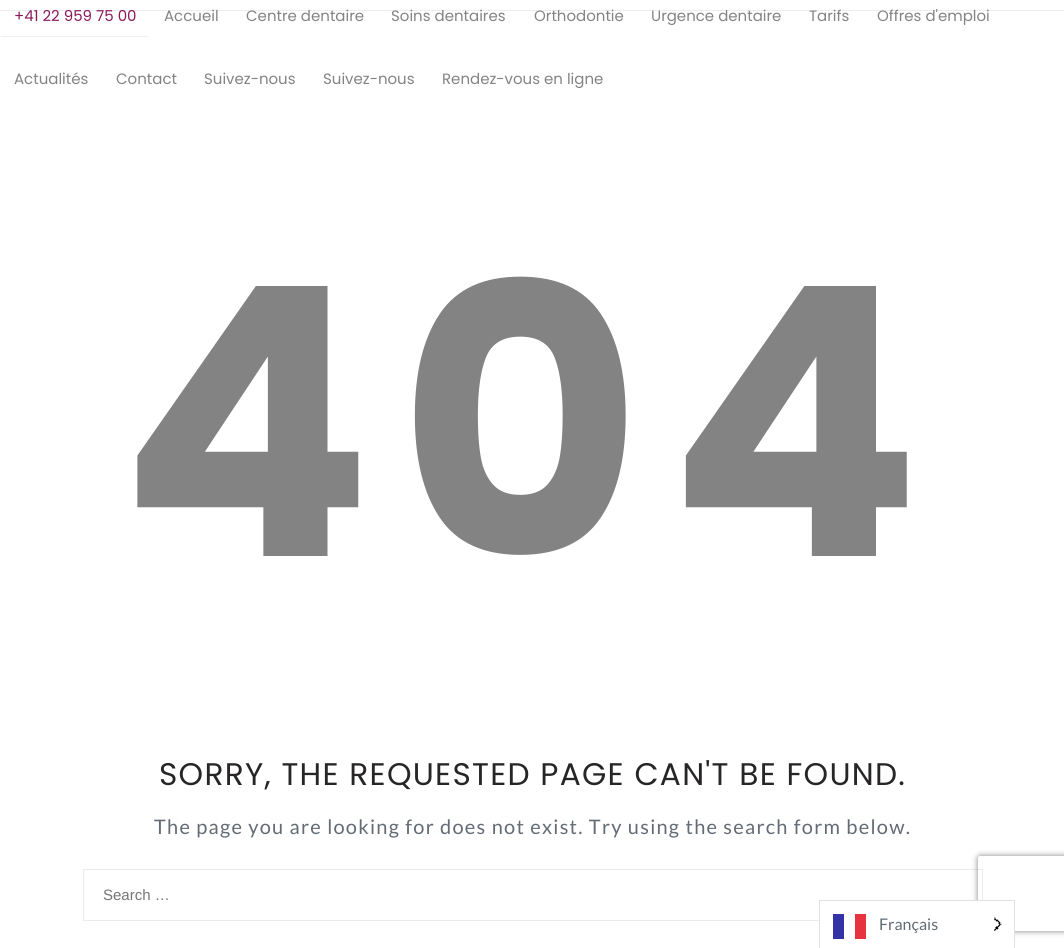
import math
import cairo



def draw_spaced(context, x, y, s, letter, word):
    context.move_to(x, y)
    for ch in s:
        context.show_text(ch)
        context.rel_move_to(letter + word * (ch == ' '), 0)


def rounded_rect(context, x, y, w, h, r):
    context.new_sub_path()
    for i, (u, v) in enumerate([(x + w - r, y + h - r), (x + r, y + h - r), (x + r, y + r), (x + w - r, y + r)]):
        context.arc(u, v, r, i * math.pi / 2, (i + 1) * math.pi / 2)
    context.close_path()


def draw_shadow(context, x, y, w, h, r, blur, alpha):
    context.push_group_with_content(cairo.Content.ALPHA)
    context.set_operator(cairo.Operator.SOURCE)
    for i in range(15, -16, -2):
        e = blur * i / 6
        if min(w, h) + 2 * e > 0:
            context.set_source_rgba(0, 0, 0, alpha * math.erfc((i - 1) / 8.5) / 2)
            rounded_rect(context, x - e, y - e, w + 2 * e, h + 2 * e, max(0, min(r + e + blur * .6, min(w, h) / 2 + e)))
            context.fill()
    context.mask(context.pop_group())


def draw_image(context, path, x, y, w, h):
    context.save()
    context.set_source_surface(cairo.ImageSurface.create_from_png(path), x, y)
    context.rectangle(x, y, w, h)
    context.fill()
    context.restore()


def draw(context):
    context.set_source_rgb(1, 1, 1)
    context.paint()
    context.set_source_rgb(237 / 255, 237 / 255, 237 / 255)
    context.rectangle(0, 10, 1064, 1)
    context.fill()
    context.set_source_rgb(240 / 255, 240 / 255, 240 / 255)
    context.rectangle(1, 36, 148, 1)
    context.fill()
    context.rectangle(83.5, 869.5, 899, 51)
    context.set_source_rgb(236 / 255, 234 / 255, 234 / 255)
    context.set_line_width(1)
    context.stroke()
    context.save()
    context.set_fill_rule(cairo.FillRule.EVEN_ODD)
    context.new_path()
    context.move_to(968, 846)
    context.line_to(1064, 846)
    context.line_to(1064, 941)
    context.line_to(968, 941)
    context.close_path()
    context.move_to(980.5, 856)
    context.line_to(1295.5, 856)
    context.curve_to(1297, 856, 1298, 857, 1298, 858.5)
    context.line_to(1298, 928.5)
    context.curve_to(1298, 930, 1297, 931, 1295.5, 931)
    context.line_to(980.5, 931)
    context.curve_to(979, 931, 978, 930, 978, 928.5)
    context.line_to(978, 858.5)
    context.curve_to(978, 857, 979, 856, 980.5, 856)
    context.close_path()
    context.clip()
    context.set_source_rgb(128 / 255, 128 / 255, 128 / 255)
    draw_shadow(context, 978, 856, 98, 75, 2.5, 3, 1)
    context.restore()
    context.set_source_rgb(1, 1, 1)
    context.rectangle(820, 901, 194, 36)
    context.fill()
    context.rectangle(819.5, 900.5, 195, 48)
    context.set_source_rgb(224 / 255, 224 / 255, 224 / 255)
    context.stroke()
    context.set_source_rgb(0, 0, 145 / 255)
    context.rectangle(833, 914, 11, 25)
    context.fill()
    context.set_source_rgb(225 / 255, 0, 15 / 255)
    context.rectangle(855, 914, 11, 25)
    context.fill()
    context.set_source_rgba(1, 1, 1, 0.2)
    context.rectangle(833, 914, 33, 25)
    context.fill()
    draw_image(context, "images/1.png", 994, 917, 8, 14)
    context.select_font_face("Poppins")
    context.set_font_size(15)
    context.set_source_rgb(137 / 255, 25 / 255, 93 / 255)
    context.move_to(14, 21)
    context.show_text("+41 22 959 75 00")
    context.set_source_rgb(131 / 255, 131 / 255, 131 / 255)
    context.move_to(164, 21)
    context.show_text("Accueil")
    context.move_to(246, 21)
    context.show_text("Centre dentaire")
    context.move_to(391, 21)
    context.show_text("Soins dentaires")
    context.move_to(534, 21)
    context.show_text("Orthodontie")
    context.move_to(651, 21)
    context.show_text("Urgence dentaire")
    context.move_to(809, 21)
    context.show_text("Tarifs")
    context.move_to(877, 21)
    context.show_text("Offres d'emploi")
    context.move_to(14, 84)
    context.show_text("Actualités")
    context.move_to(116, 84)
    context.show_text("Contact")
    context.move_to(204, 84)
    context.show_text("Suivez-nous")
    context.move_to(323, 84)
    context.show_text("Suivez-nous")
    context.move_to(442, 84)
    context.show_text("Rendez-vous en ligne")
    context.select_font_face("Poppins", cairo.FontSlant.NORMAL, cairo.FontWeight.BOLD)
    context.set_font_size(375)
    draw_spaced(context, 119, 556, "404", 25, 0)
    context.select_font_face("Poppins")
    context.set_font_size(31.25)
    context.set_source_rgb(39 / 255, 37 / 255, 37 / 255)
    draw_spaced(context, 159, 785, "SORRY, THE REQUESTED PAGE CAN'T BE FOUND.", 1.25, 0)
    context.select_font_face("Lato")
    context.set_font_size(20)
    context.set_source_rgb(99 / 255, 107 / 255, 117 / 255)
    draw_spaced(context, 154, 834, "The page you are looking for does not exist. Try using the search form below.", 1.25, 0)
    context.select_font_face("Liberation Sans")
    context.set_font_size(15)
    context.set_source_rgb(117 / 255, 117 / 255, 117 / 255)
    context.move_to(103, 900)
    context.show_text("Search …")
    context.select_font_face("Lato")
    context.set_font_size(16)
    context.set_source_rgb(99 / 255, 107 / 255, 117 / 255)
    context.move_to(879, 930)
    context.show_text("Français")


surface = cairo.ImageSurface(cairo.Format.RGB24, 1064, 948)
context = cairo.Context(surface)
options = cairo.FontOptions()
options.set_hint_metrics(cairo.HintMetrics.OFF)
options.set_hint_style(cairo.HintStyle.NONE)
context.set_font_options(options)
context.set_miter_limit(4)
draw(context)
surface.write_to_png("out.png")
